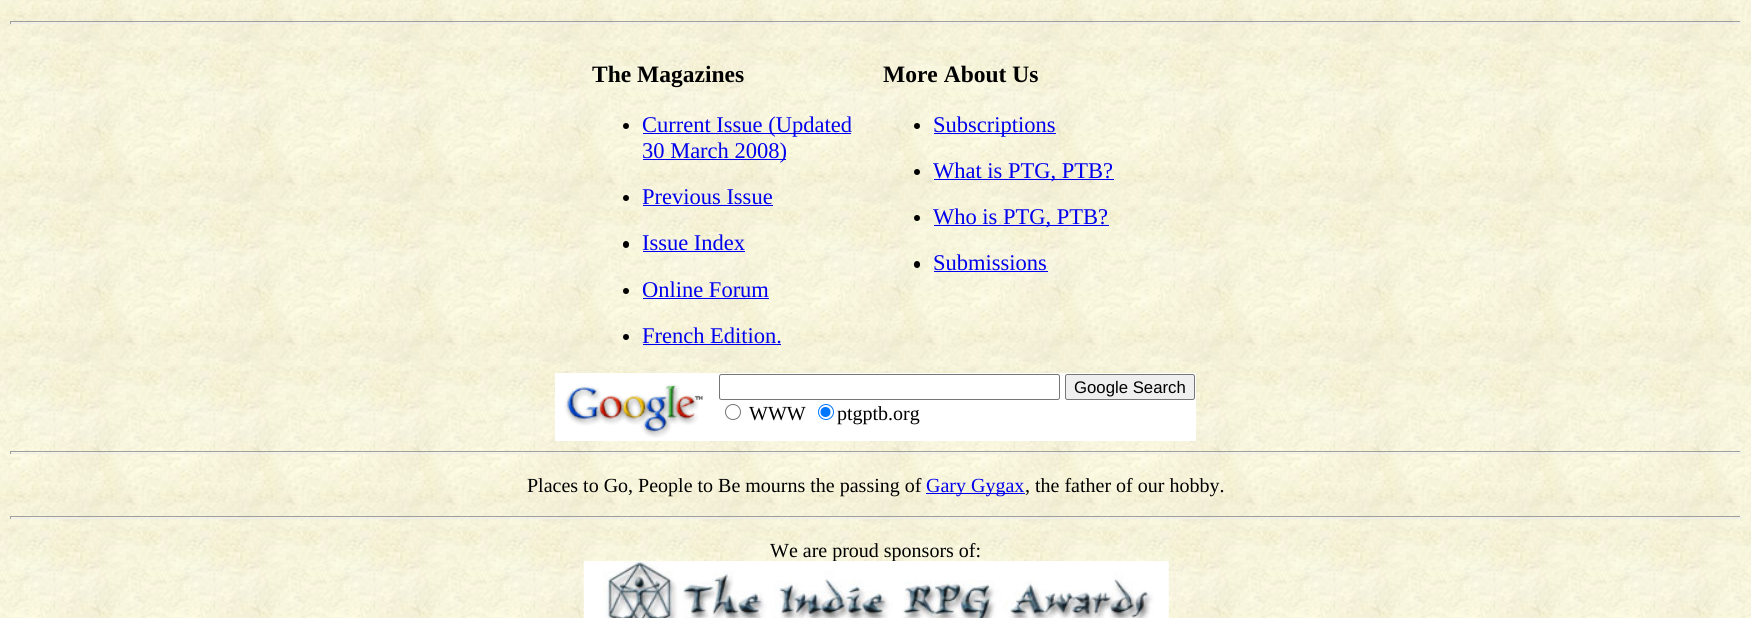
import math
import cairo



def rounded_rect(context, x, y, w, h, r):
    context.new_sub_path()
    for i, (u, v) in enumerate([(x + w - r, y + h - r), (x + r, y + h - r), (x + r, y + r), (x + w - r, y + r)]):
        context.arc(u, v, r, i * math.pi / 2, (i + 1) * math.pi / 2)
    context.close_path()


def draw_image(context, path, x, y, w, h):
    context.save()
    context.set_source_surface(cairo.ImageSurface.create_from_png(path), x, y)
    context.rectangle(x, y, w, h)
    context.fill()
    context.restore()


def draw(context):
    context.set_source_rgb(1, 1, 1)
    context.paint()
    draw_image(context, "images/1.png", 0, 0, 1751, 618)
    context.set_source_rgb(159 / 255, 159 / 255, 159 / 255)
    context.rectangle(10, 21, 1731, 1)
    context.fill()
    context.set_source_rgb(238 / 255, 238 / 255, 238 / 255)
    context.rectangle(1740, 21, 1, 3)
    context.fill()
    context.rectangle(10, 23, 1731, 1)
    context.fill()
    context.set_source_rgb(159 / 255, 159 / 255, 159 / 255)
    context.rectangle(10, 21, 1, 3)
    context.fill()
    context.set_source_rgb(0, 0, 0)
    context.arc(626, 126, 3, 0, 2 * math.pi)
    context.fill()
    context.set_source_rgb(0, 0, 238 / 255)
    context.rectangle(643, 133, 208, 1)
    context.fill()
    context.rectangle(643, 159, 143, 1)
    context.fill()
    context.set_source_rgb(0, 0, 0)
    context.arc(626, 198, 3, 0, 2 * math.pi)
    context.fill()
    context.set_source_rgb(0, 0, 238 / 255)
    context.rectangle(643, 205, 130, 1)
    context.fill()
    context.set_source_rgb(0, 0, 0)
    rounded_rect(context, 623, 241, 6, 7, 3)
    context.fill()
    context.set_source_rgb(0, 0, 238 / 255)
    context.rectangle(643, 251, 102, 1)
    context.fill()
    context.set_source_rgb(0, 0, 0)
    context.arc(626, 291, 3, 0, 2 * math.pi)
    context.fill()
    context.set_source_rgb(0, 0, 238 / 255)
    context.rectangle(643, 298, 126, 1)
    context.fill()
    context.set_source_rgb(0, 0, 0)
    context.arc(626, 337, 3, 0, 2 * math.pi)
    context.fill()
    context.set_source_rgb(0, 0, 238 / 255)
    context.rectangle(643, 344, 138, 1)
    context.fill()
    context.set_source_rgb(0, 0, 0)
    context.arc(917, 126, 3, 0, 2 * math.pi)
    context.fill()
    context.set_source_rgb(0, 0, 238 / 255)
    context.rectangle(934, 133, 122, 1)
    context.fill()
    context.set_source_rgb(0, 0, 0)
    context.arc(917, 172, 3, 0, 2 * math.pi)
    context.fill()
    context.set_source_rgb(0, 0, 238 / 255)
    context.rectangle(934, 179, 180, 1)
    context.fill()
    context.set_source_rgb(0, 0, 0)
    context.arc(917, 218, 3, 0, 2 * math.pi)
    context.fill()
    context.set_source_rgb(0, 0, 238 / 255)
    context.rectangle(934, 225, 175, 1)
    context.fill()
    context.set_source_rgb(0, 0, 0)
    rounded_rect(context, 914, 261, 6, 7, 3)
    context.fill()
    context.set_source_rgb(0, 0, 238 / 255)
    context.rectangle(934, 271, 114, 1)
    context.fill()
    context.set_source_rgb(1, 1, 1)
    context.rectangle(555, 373, 641, 68)
    context.fill()
    draw_image(context, "images/2.png", 564, 384, 139, 54)
    rounded_rect(context, 719.5, 374.5, 340, 25, 2)
    context.set_source_rgb(118 / 255, 118 / 255, 118 / 255)
    context.set_line_width(1)
    context.stroke()
    context.set_source_rgb(239 / 255, 239 / 255, 239 / 255)
    rounded_rect(context, 1065.5, 374.5, 129, 25, 2)
    context.fill_preserve()
    context.set_source_rgb(118 / 255, 118 / 255, 118 / 255)
    context.stroke()
    context.arc(733, 412, 7.5, 0, 2 * math.pi)
    context.stroke()
    context.arc(826, 412, 7.5, 0, 2 * math.pi)
    context.set_source_rgb(0, 117 / 255, 1)
    context.stroke()
    context.arc(825.5, 412, 5, 0, 2 * math.pi)
    context.fill()
    context.set_source_rgb(159 / 255, 159 / 255, 159 / 255)
    context.rectangle(10, 451, 1731, 1)
    context.fill()
    context.set_source_rgb(238 / 255, 238 / 255, 238 / 255)
    context.rectangle(1740, 451, 1, 3)
    context.fill()
    context.rectangle(10, 453, 1731, 1)
    context.fill()
    context.set_source_rgb(159 / 255, 159 / 255, 159 / 255)
    context.rectangle(10, 451, 1, 3)
    context.fill()
    context.set_source_rgb(0, 0, 238 / 255)
    context.rectangle(926, 493, 99, 1)
    context.fill()
    context.set_source_rgb(159 / 255, 159 / 255, 159 / 255)
    context.rectangle(10, 516, 1731, 1)
    context.fill()
    context.set_source_rgb(238 / 255, 238 / 255, 238 / 255)
    context.rectangle(1740, 516, 1, 3)
    context.fill()
    context.rectangle(10, 518, 1731, 1)
    context.fill()
    context.set_source_rgb(159 / 255, 159 / 255, 159 / 255)
    context.rectangle(10, 516, 1, 3)
    context.fill()
    context.select_font_face("Liberation Serif", cairo.FontSlant.NORMAL, cairo.FontWeight.BOLD)
    context.set_font_size(23.5)
    context.set_source_rgb(0, 0, 0)
    context.move_to(592, 82)
    context.show_text("The Magazines")
    context.select_font_face("Liberation Serif")
    context.set_font_size(22.5)
    context.set_source_rgb(0, 0, 238 / 255)
    context.move_to(642, 132)
    context.show_text("Current Issue (Updated")
    context.move_to(642, 158)
    context.show_text("30 March 2008)")
    context.move_to(642, 204)
    context.show_text("Previous Issue")
    context.move_to(642, 250)
    context.show_text("Issue Index")
    context.move_to(642, 297)
    context.show_text("Online Forum")
    context.move_to(642, 343)
    context.show_text("French Edition.")
    context.select_font_face("Liberation Serif", cairo.FontSlant.NORMAL, cairo.FontWeight.BOLD)
    context.set_font_size(23.5)
    context.set_source_rgb(0, 0, 0)
    context.move_to(883, 82)
    context.show_text("More About Us")
    context.select_font_face("Liberation Serif")
    context.set_font_size(22.5)
    context.set_source_rgb(0, 0, 238 / 255)
    context.move_to(933, 132)
    context.show_text("Subscriptions")
    context.move_to(933, 178)
    context.show_text("What is PTG, PTB?")
    context.move_to(933, 224)
    context.show_text("Who is PTG, PTB?")
    context.move_to(933, 270)
    context.show_text("Submissions")
    context.select_font_face("Liberation Sans")
    context.set_font_size(16.75)
    context.set_source_rgb(0, 0, 0)
    context.move_to(1074, 393)
    context.show_text("Google Search")
    context.select_font_face("Liberation Serif")
    context.set_font_size(20)
    context.move_to(749, 420)
    context.show_text("WWW")
    context.move_to(837, 420)
    context.show_text("ptgptb.org")
    context.move_to(527, 492)
    context.show_text("Places to Go, People to Be mourns the passing of")
    context.set_source_rgb(0, 0, 238 / 255)
    context.move_to(926, 492)
    context.show_text("Gary Gygax")
    context.set_source_rgb(0, 0, 0)
    context.move_to(1025, 492)
    context.show_text(", the father of our hobby.")
    context.move_to(770, 557)
    context.show_text("We are proud sponsors of:")
    draw_image(context, "images/3.png", 583, 561, 586, 57)


surface = cairo.ImageSurface(cairo.Format.RGB24, 1751, 618)
context = cairo.Context(surface)
options = cairo.FontOptions()
options.set_hint_metrics(cairo.HintMetrics.OFF)
options.set_hint_style(cairo.HintStyle.NONE)
context.set_font_options(options)
context.set_miter_limit(4)
draw(context)
surface.write_to_png("out.png")
